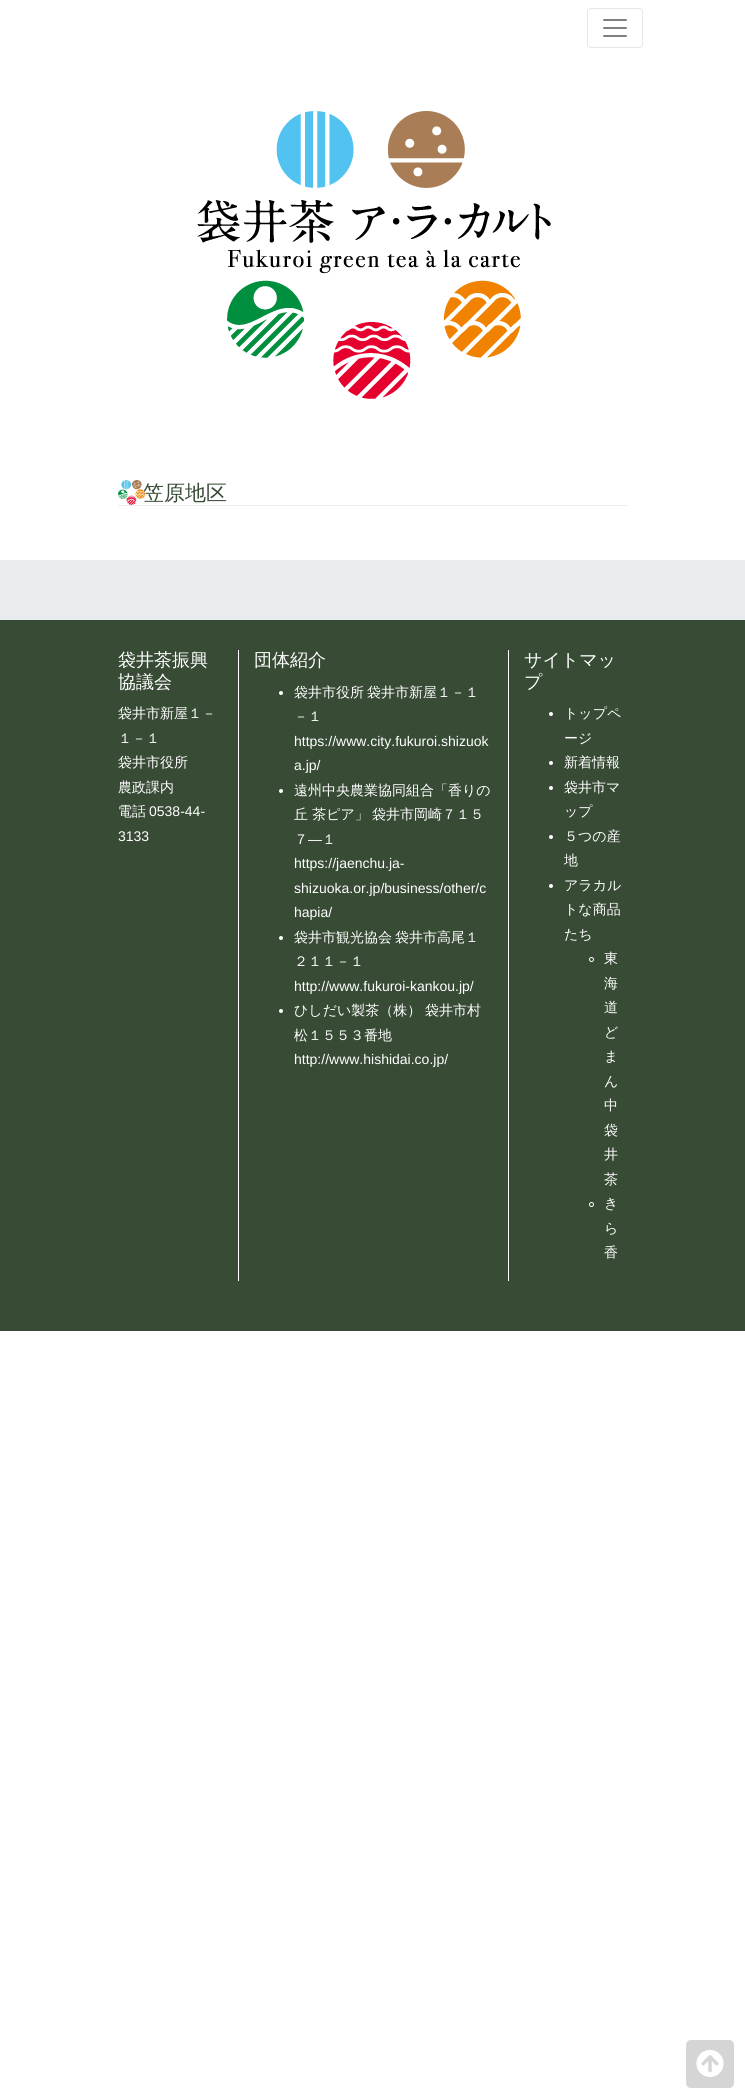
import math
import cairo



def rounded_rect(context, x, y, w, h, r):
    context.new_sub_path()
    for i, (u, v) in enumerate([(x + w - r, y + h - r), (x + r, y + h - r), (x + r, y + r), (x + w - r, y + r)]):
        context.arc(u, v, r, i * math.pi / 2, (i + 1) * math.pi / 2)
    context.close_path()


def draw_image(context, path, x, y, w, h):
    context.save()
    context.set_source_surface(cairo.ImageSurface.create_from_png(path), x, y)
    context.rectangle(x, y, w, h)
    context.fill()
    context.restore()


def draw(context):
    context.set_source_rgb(1, 1, 1)
    context.paint()
    rounded_rect(context, 587.5, 8.5, 55, 39, 3.5)
    context.set_source_rgb(230 / 255, 230 / 255, 230 / 255)
    context.set_line_width(1)
    context.stroke()
    draw_image(context, "images/1.png", 603, 19, 24, 18)
    draw_image(context, "images/2.png", 197, 111, 354, 288)
    draw_image(context, "images/3.png", 118, 480, 27, 25)
    context.set_source_rgb(238 / 255, 238 / 255, 238 / 255)
    context.rectangle(118, 505, 510, 1)
    context.fill()
    context.set_source_rgb(233 / 255, 236 / 255, 239 / 255)
    context.rectangle(0, 560, 745, 60)
    context.fill()
    context.set_source_rgb(55 / 255, 75 / 255, 53 / 255)
    context.rectangle(0, 620, 745, 711)
    context.fill()
    context.set_source_rgb(1, 1, 1)
    context.rectangle(238, 650, 1, 631)
    context.fill()
    context.arc(281, 693, 2, 0, 2 * math.pi)
    context.fill()
    context.arc(281, 791, 2, 0, 2 * math.pi)
    context.fill()
    context.arc(281, 938, 2, 0, 2 * math.pi)
    context.fill()
    context.arc(281, 1011, 2, 0, 2 * math.pi)
    context.fill()
    context.rectangle(508, 650, 1, 631)
    context.fill()
    context.arc(551, 714, 2, 0, 2 * math.pi)
    context.fill()
    context.arc(551, 763, 2, 0, 2 * math.pi)
    context.fill()
    context.arc(551, 788, 2, 0, 2 * math.pi)
    context.fill()
    context.arc(551, 837, 2, 0, 2 * math.pi)
    context.fill()
    context.arc(551, 886, 2, 0, 2 * math.pi)
    context.fill()
    context.arc(591.5, 959.5, 2, 0, 2 * math.pi)
    context.stroke()
    context.arc(591.5, 1204.5, 2, 0, 2 * math.pi)
    context.stroke()
    context.set_source_rgb(213 / 255, 213 / 255, 213 / 255)
    rounded_rect(context, 686, 2040, 48, 48, 5)
    context.fill()
    draw_image(context, "images/4.png", 696, 2050, 28, 27)
    context.select_font_face("WenQuanYi Zen Hei Medium")
    context.set_font_size(21)
    context.set_source_rgb(55 / 255, 75 / 255, 53 / 255)
    context.move_to(143, 500)
    context.show_text("笠原地区")
    context.set_font_size(18)
    context.set_source_rgb(1, 1, 1)
    context.move_to(118, 666)
    context.show_text("袋井茶振興")
    context.move_to(118, 688)
    context.show_text("協議会")
    context.set_font_size(14)
    context.move_to(118, 718)
    context.show_text("袋井市新屋１－")
    context.move_to(118, 743)
    context.show_text("１－１")
    context.move_to(118, 767)
    context.show_text("袋井市役所")
    context.move_to(118, 792)
    context.show_text("農政課内")
    context.move_to(118, 816)
    context.show_text("電話")
    context.select_font_face("Liberation Sans")
    context.move_to(149, 816)
    context.show_text("0538-44-")
    context.move_to(118, 841)
    context.show_text("3133")
    context.select_font_face("WenQuanYi Zen Hei Medium")
    context.set_font_size(18)
    context.move_to(254, 666)
    context.show_text("団体紹介")
    context.set_font_size(14)
    context.move_to(294, 697)
    context.show_text("袋井市役所")
    context.move_to(367, 697)
    context.show_text("袋井市新屋１－１")
    context.move_to(294, 721)
    context.show_text("－１")
    context.select_font_face("Liberation Sans")
    context.move_to(294, 746)
    context.show_text("https://www.city.fukuroi.shizuok")
    context.move_to(294, 770)
    context.show_text("a.jp/")
    context.select_font_face("WenQuanYi Zen Hei Medium")
    context.move_to(294, 795)
    context.show_text("遠州中央農業協同組合「香りの")
    context.move_to(294, 819)
    context.show_text("丘 茶ピア」")
    context.move_to(372, 819)
    context.show_text("袋井市岡崎７１５")
    context.move_to(294, 844)
    context.show_text("７")
    context.select_font_face("Liberation Sans")
    context.move_to(308, 844)
    context.show_text("―")
    context.select_font_face("WenQuanYi Zen Hei Medium")
    context.move_to(322, 844)
    context.show_text("１")
    context.select_font_face("Liberation Sans")
    context.move_to(294, 868)
    context.show_text("https://jaenchu.ja-")
    context.move_to(294, 893)
    context.show_text("shizuoka.or.jp/business/other/c")
    context.move_to(294, 917)
    context.show_text("hapia/")
    context.select_font_face("WenQuanYi Zen Hei Medium")
    context.move_to(294, 942)
    context.show_text("袋井市観光協会")
    context.move_to(395, 942)
    context.show_text("袋井市高尾１")
    context.move_to(294, 966)
    context.show_text("２１１－１")
    context.select_font_face("Liberation Sans")
    context.move_to(294, 991)
    context.show_text("http://www.fukuroi-kankou.jp/")
    context.select_font_face("WenQuanYi Zen Hei Medium")
    context.move_to(294, 1015)
    context.show_text("ひしだい製茶（株）")
    context.move_to(425, 1015)
    context.show_text("袋井市村")
    context.move_to(294, 1040)
    context.show_text("松１５５３番地")
    context.select_font_face("Liberation Sans")
    context.move_to(294, 1064)
    context.show_text("http://www.hishidai.co.jp/")
    context.select_font_face("WenQuanYi Zen Hei Medium")
    context.set_font_size(18)
    context.move_to(524, 666)
    context.show_text("サイトマッ")
    context.move_to(524, 688)
    context.show_text("プ")
    context.set_font_size(14)
    context.move_to(564, 718)
    context.show_text("トップペ")
    context.move_to(564, 743)
    context.show_text("ージ")
    context.move_to(564, 767)
    context.show_text("新着情報")
    context.move_to(564, 792)
    context.show_text("袋井市マ")
    context.move_to(564, 816)
    context.show_text("ップ")
    context.move_to(564, 841)
    context.show_text("５つの産")
    context.move_to(564, 865)
    context.show_text("地")
    context.move_to(564, 890)
    context.show_text("アラカル")
    context.move_to(564, 914)
    context.show_text("トな商品")
    context.move_to(564, 939)
    context.show_text("たち")
    context.move_to(604, 963)
    context.show_text("東")
    context.move_to(604, 988)
    context.show_text("海")
    context.move_to(604, 1012)
    context.show_text("道")
    context.move_to(604, 1037)
    context.show_text("ど")
    context.move_to(604, 1061)
    context.show_text("ま")
    context.move_to(604, 1086)
    context.show_text("ん")
    context.move_to(604, 1110)
    context.show_text("中")
    context.move_to(604, 1135)
    context.show_text("袋")
    context.move_to(604, 1159)
    context.show_text("井")
    context.move_to(604, 1184)
    context.show_text("茶")
    context.move_to(604, 1208)
    context.show_text("き")
    context.move_to(604, 1233)
    context.show_text("ら")
    context.move_to(604, 1257)
    context.show_text("香")


surface = cairo.ImageSurface(cairo.Format.RGB24, 745, 2093)
context = cairo.Context(surface)
options = cairo.FontOptions()
options.set_hint_metrics(cairo.HintMetrics.OFF)
options.set_hint_style(cairo.HintStyle.NONE)
context.set_font_options(options)
context.set_miter_limit(4)
draw(context)
surface.write_to_png("out.png")
